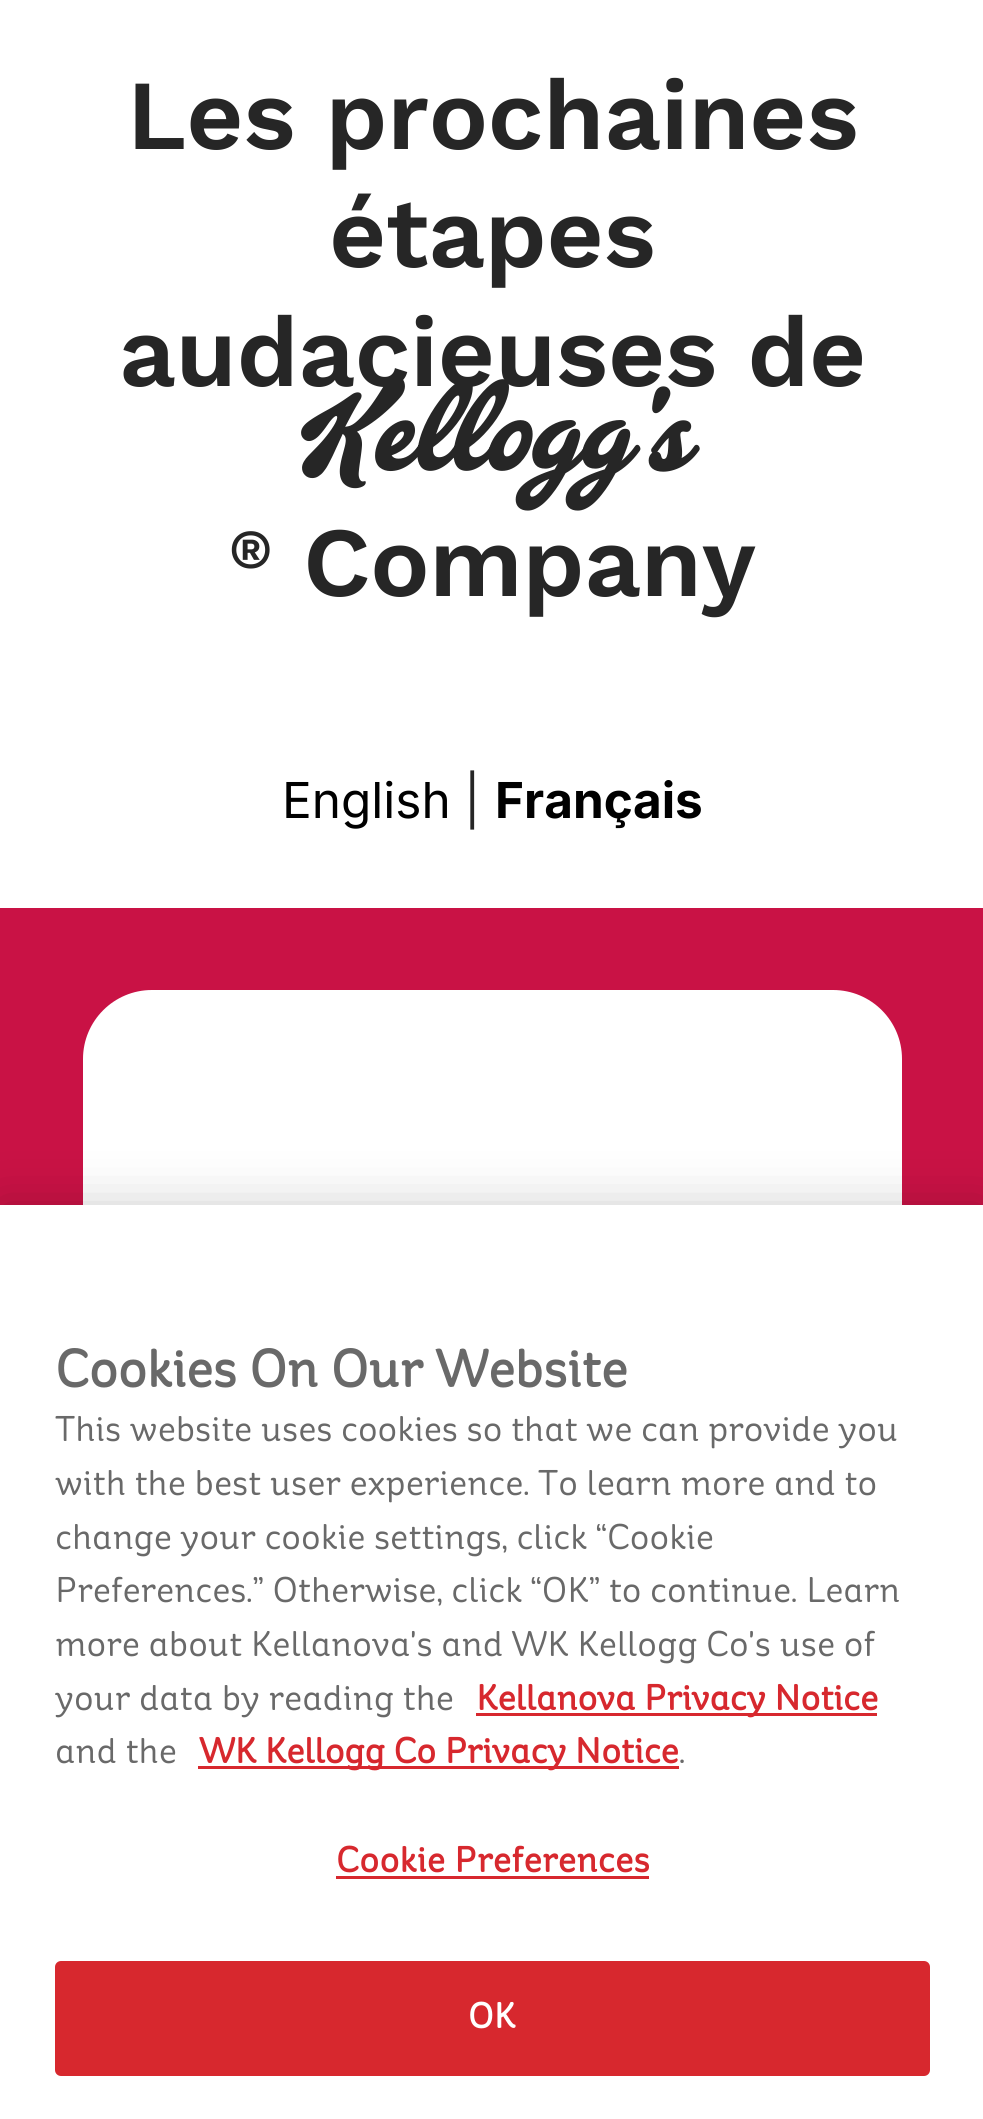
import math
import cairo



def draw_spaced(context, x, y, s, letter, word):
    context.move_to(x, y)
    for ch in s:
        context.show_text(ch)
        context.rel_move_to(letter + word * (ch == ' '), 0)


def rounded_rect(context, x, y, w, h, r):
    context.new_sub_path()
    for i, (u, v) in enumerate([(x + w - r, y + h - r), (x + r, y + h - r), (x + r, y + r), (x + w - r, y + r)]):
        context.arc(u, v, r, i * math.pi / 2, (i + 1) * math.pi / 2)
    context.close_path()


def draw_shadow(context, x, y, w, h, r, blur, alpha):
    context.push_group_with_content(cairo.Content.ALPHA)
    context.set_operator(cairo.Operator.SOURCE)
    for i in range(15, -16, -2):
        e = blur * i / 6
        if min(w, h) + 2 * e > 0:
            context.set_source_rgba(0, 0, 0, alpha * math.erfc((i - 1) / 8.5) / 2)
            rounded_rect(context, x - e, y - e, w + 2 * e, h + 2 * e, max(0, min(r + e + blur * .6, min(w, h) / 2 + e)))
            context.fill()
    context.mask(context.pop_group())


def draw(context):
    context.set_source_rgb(1, 1, 1)
    context.paint()
    context.rectangle(55, 963, 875, 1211)
    context.set_source_rgb(201 / 255, 18 / 255, 69 / 255)
    context.set_line_width(110)
    context.stroke()
    context.set_source_rgb(1, 1, 1)
    rounded_rect(context, 83, 990, 819, 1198, 69)
    context.fill()
    context.set_source_rgb(0, 0, 0)
    draw_shadow(context, 0, 1205, 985, 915, 0, 25, 0.2)
    context.set_source_rgb(1, 1, 1)
    context.rectangle(0, 1205, 983, 914)
    context.fill()
    context.set_source_rgb(215 / 255, 40 / 255, 46 / 255)
    context.rectangle(476, 1713, 401, 3)
    context.fill()
    context.rectangle(198, 1766, 481, 3)
    context.fill()
    context.rectangle(336, 1876, 313, 3)
    context.fill()
    rounded_rect(context, 56.5, 1962.5, 872, 112, 4.5)
    context.fill_preserve()
    context.set_line_width(3)
    context.stroke()
    context.select_font_face("Work Sans SemiBold")
    context.set_font_size(99)
    context.set_source_rgb(38 / 255, 38 / 255, 38 / 255)
    draw_spaced(context, 127, 149, "Les prochaines", -0.3, 0)
    draw_spaced(context, 329, 267, "étapes", -0.3, 0)
    draw_spaced(context, 119, 386, "audacieuses de", -0.3, 0)
    context.select_font_face("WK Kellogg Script")
    context.set_font_size(93.5)
    context.move_to(295, 469)
    context.show_text("Kellogg's")
    context.select_font_face("Work Sans SemiBold")
    context.set_font_size(55)
    context.move_to(229, 568)
    context.show_text("®")
    context.set_font_size(99)
    draw_spaced(context, 303, 596, "Company", -0.3, 0)
    context.select_font_face("Inter")
    context.set_font_size(49.5)
    context.set_source_rgb(0, 0, 0)
    context.move_to(282, 818)
    context.show_text("English")
    context.set_source_rgb(38 / 255, 38 / 255, 38 / 255)
    context.move_to(464, 818)
    context.show_text("|")
    context.select_font_face("Inter", cairo.FontSlant.NORMAL, cairo.FontWeight.BOLD)
    context.set_source_rgb(0, 0, 0)
    context.move_to(495, 818)
    context.show_text("Français")
    context.select_font_face("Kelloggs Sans", cairo.FontSlant.NORMAL, cairo.FontWeight.BOLD)
    context.set_font_size(52.75)
    context.set_source_rgb(105 / 255, 105 / 255, 105 / 255)
    context.move_to(55, 1387)
    context.show_text("Cookies On Our Website")
    context.select_font_face("Kelloggs Sans")
    context.set_font_size(35.75)
    context.move_to(55, 1441)
    context.show_text("This website uses cookies so that we can provide you")
    context.move_to(55, 1495)
    context.show_text("with the best user experience. To learn more and to")
    context.move_to(55, 1549)
    context.show_text("change your cookie settings, click “Cookie")
    context.move_to(55, 1602)
    context.show_text("Preferences.” Otherwise, click “OK” to continue. Learn")
    context.move_to(55, 1656)
    context.show_text("more about Kellanova's and WK Kellogg Co's use of")
    context.move_to(55, 1710)
    context.show_text("your data by reading the")
    context.select_font_face("Kelloggs Sans", cairo.FontSlant.NORMAL, cairo.FontWeight.BOLD)
    context.set_source_rgb(215 / 255, 40 / 255, 46 / 255)
    context.move_to(476, 1710)
    context.show_text("Kellanova Privacy Notice")
    context.select_font_face("Kelloggs Sans")
    context.set_source_rgb(105 / 255, 105 / 255, 105 / 255)
    context.move_to(55, 1763)
    context.show_text("and the")
    context.select_font_face("Kelloggs Sans", cairo.FontSlant.NORMAL, cairo.FontWeight.BOLD)
    context.set_source_rgb(215 / 255, 40 / 255, 46 / 255)
    context.move_to(199, 1763)
    context.show_text("WK Kellogg Co Privacy Notice")
    context.select_font_face("Kelloggs Sans")
    context.set_source_rgb(105 / 255, 105 / 255, 105 / 255)
    context.move_to(679, 1763)
    context.show_text(".")
    context.select_font_face("Kelloggs Sans", cairo.FontSlant.NORMAL, cairo.FontWeight.BOLD)
    context.set_source_rgb(215 / 255, 40 / 255, 46 / 255)
    draw_spaced(context, 336, 1872, "Cookie Preferences", 0.4, 0)
    context.set_source_rgb(1, 1, 1)
    draw_spaced(context, 468, 2028, "OK", 0.4, 0)


surface = cairo.ImageSurface(cairo.Format.RGB24, 983, 2119)
context = cairo.Context(surface)
options = cairo.FontOptions()
options.set_hint_metrics(cairo.HintMetrics.OFF)
options.set_hint_style(cairo.HintStyle.NONE)
context.set_font_options(options)
context.set_miter_limit(4)
draw(context)
surface.write_to_png("out.png")
